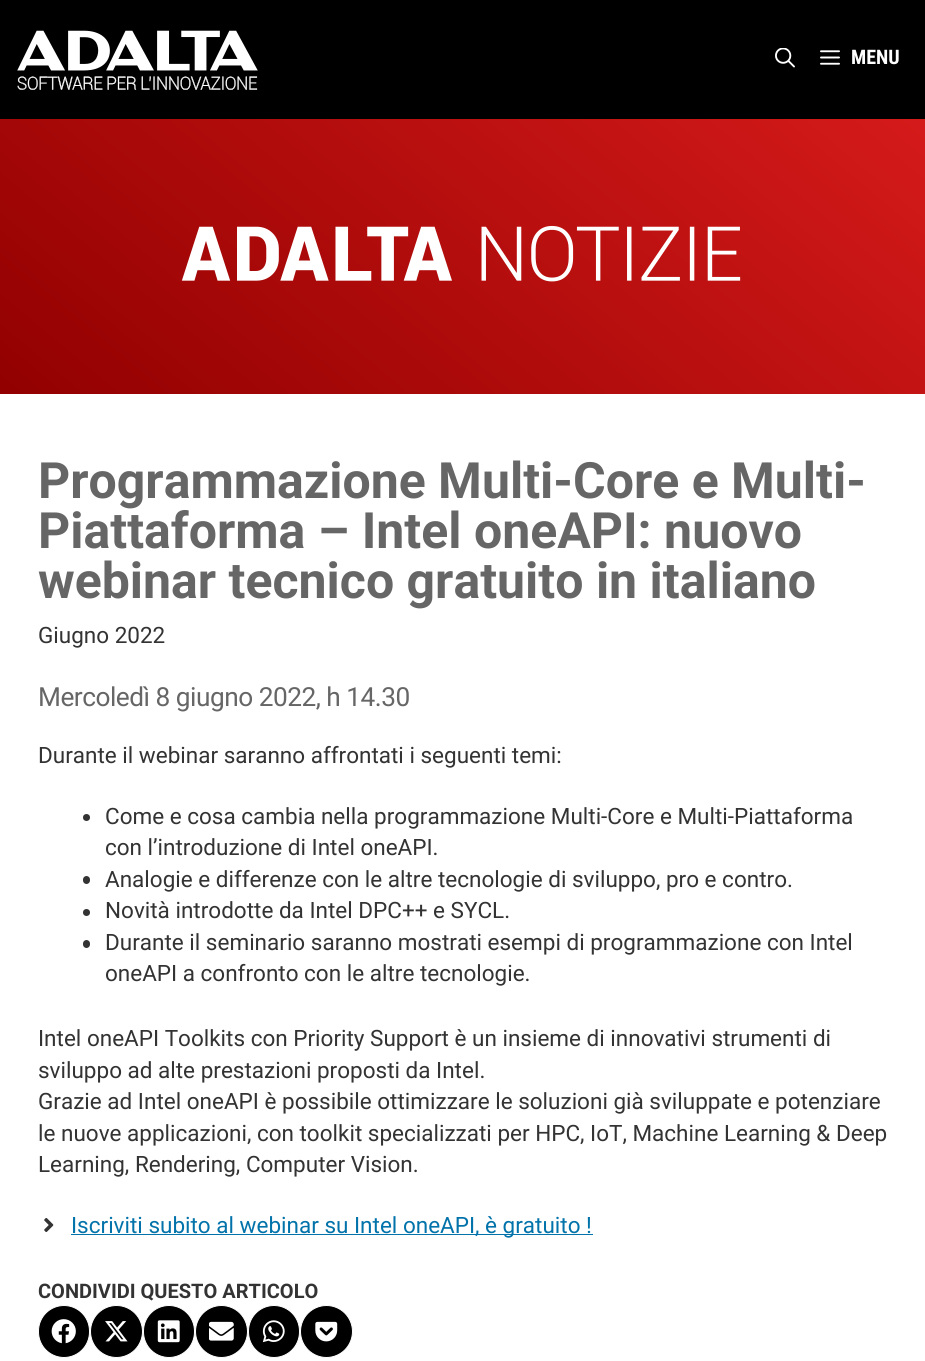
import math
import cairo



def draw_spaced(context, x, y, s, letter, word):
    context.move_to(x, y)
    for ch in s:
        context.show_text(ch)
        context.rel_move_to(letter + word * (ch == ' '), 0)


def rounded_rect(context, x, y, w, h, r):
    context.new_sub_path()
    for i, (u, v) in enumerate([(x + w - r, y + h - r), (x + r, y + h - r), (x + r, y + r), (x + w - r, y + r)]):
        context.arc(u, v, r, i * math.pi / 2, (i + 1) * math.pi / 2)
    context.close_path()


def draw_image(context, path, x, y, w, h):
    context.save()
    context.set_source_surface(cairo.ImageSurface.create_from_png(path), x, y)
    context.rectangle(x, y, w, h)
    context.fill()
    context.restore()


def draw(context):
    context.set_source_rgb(1, 1, 1)
    context.paint()
    context.set_source_rgb(0, 0, 0)
    context.rectangle(0, 0, 925, 119)
    context.fill()
    draw_image(context, "images/1.png", 17, 30, 241, 41)
    draw_image(context, "images/2.png", 17, 76, 241, 14)
    draw_image(context, "images/3.png", 775, 48, 20, 20)
    draw_image(context, "images/4.png", 820, 50, 20, 15)
    gradient = cairo.LinearGradient(721, -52, 204, 565)
    gradient.add_color_stop_rgba(0, 213 / 255, 26 / 255, 26 / 255, 1)
    gradient.add_color_stop_rgba(1, 146 / 255, 0, 0, 1)
    context.set_source(gradient)
    context.rectangle(0, 119, 925, 275)
    context.fill()
    draw_image(context, "images/5.png", 181, 225, 560, 57)
    context.set_source_rgb(51 / 255, 51 / 255, 51 / 255)
    context.arc(86.5, 817.5, 3.5, 0, 2 * math.pi)
    context.fill()
    rounded_rect(context, 83, 876, 7, 8, 3.5)
    context.fill()
    context.arc(86.5, 912.5, 3.5, 0, 2 * math.pi)
    context.fill()
    rounded_rect(context, 83, 940, 7, 8, 3.5)
    context.fill()
    draw_image(context, "images/6.png", 44, 1218, 10, 14)
    context.set_source_rgb(2 / 255, 115 / 255, 170 / 255)
    context.rectangle(71, 1234, 522, 1)
    context.fill()
    context.set_source_rgb(0, 0, 0)
    rounded_rect(context, 38.5, 1305.5, 51, 52, 25.5)
    context.fill_preserve()
    context.set_source_rgb(1, 1, 1)
    context.set_line_width(1)
    context.stroke()
    draw_image(context, "images/7.png", 51, 1319, 25, 25)
    context.set_source_rgb(0, 0, 0)
    context.arc(116.5, 1331.5, 26, 0, 2 * math.pi)
    context.fill_preserve()
    context.set_source_rgb(1, 1, 1)
    context.stroke()
    draw_image(context, "images/8.png", 105, 1321, 23, 21)
    context.set_source_rgb(0, 0, 0)
    rounded_rect(context, 143.5, 1305.5, 51, 52, 25.5)
    context.fill_preserve()
    context.set_source_rgb(1, 1, 1)
    context.stroke()
    draw_image(context, "images/9.png", 157, 1320, 23, 23)
    context.set_source_rgb(0, 0, 0)
    context.arc(221.5, 1331.5, 26, 0, 2 * math.pi)
    context.fill_preserve()
    context.set_source_rgb(1, 1, 1)
    context.stroke()
    draw_image(context, "images/10.png", 209, 1321, 25, 20)
    context.set_source_rgb(0, 0, 0)
    rounded_rect(context, 248.5, 1305.5, 51, 52, 25.5)
    context.fill_preserve()
    context.set_source_rgb(1, 1, 1)
    context.stroke()
    draw_image(context, "images/11.png", 262, 1320, 23, 23)
    context.set_source_rgb(0, 0, 0)
    context.arc(326.5, 1331.5, 26, 0, 2 * math.pi)
    context.fill_preserve()
    context.set_source_rgb(1, 1, 1)
    context.stroke()
    draw_image(context, "images/12.png", 315, 1321, 23, 21)
    context.select_font_face("Roboto Condensed", cairo.FontSlant.NORMAL, cairo.FontWeight.BOLD)
    context.set_font_size(20)
    context.move_to(851, 64)
    context.show_text("MENU")
    context.select_font_face("Roboto", cairo.FontSlant.NORMAL, cairo.FontWeight.BOLD)
    context.set_font_size(50)
    context.set_source_rgb(102 / 255, 102 / 255, 102 / 255)
    context.move_to(38, 498)
    context.show_text("Programmazione Multi-Core e Multi-")
    context.move_to(38, 548)
    context.show_text("Piattaforma – Intel oneAPI: nuovo")
    context.move_to(38, 598)
    context.show_text("webinar tecnico gratuito in italiano")
    context.select_font_face("Roboto")
    context.set_font_size(22.5)
    context.set_source_rgb(51 / 255, 51 / 255, 51 / 255)
    context.move_to(38, 643)
    context.show_text("Giugno 2022")
    context.set_font_size(26.25)
    context.set_source_rgb(102 / 255, 102 / 255, 102 / 255)
    draw_spaced(context, 38, 706, "Mercoledì 8 giugno 2022, h 14.30", -0.5, 0)
    context.set_font_size(22.5)
    context.set_source_rgb(51 / 255, 51 / 255, 51 / 255)
    context.move_to(38, 763)
    context.show_text("Durante il webinar saranno affrontati i seguenti temi:")
    context.move_to(105, 824)
    context.show_text("Come e cosa cambia nella programmazione Multi-Core e Multi-Piattaforma")
    context.move_to(105, 855)
    context.show_text("con l’introduzione di Intel oneAPI.")
    context.move_to(105, 887)
    context.show_text("Analogie e differenze con le altre tecnologie di sviluppo, pro e contro.")
    context.move_to(105, 918)
    context.show_text("Novità introdotte da Intel DPC++ e SYCL.")
    context.move_to(105, 950)
    context.show_text("Durante il seminario saranno mostrati esempi di programmazione con Intel")
    context.move_to(105, 981)
    context.show_text("oneAPI a confronto con le altre tecnologie.")
    context.move_to(38, 1046)
    context.show_text("Intel oneAPI Toolkits con Priority Support è un insieme di innovativi strumenti di")
    context.move_to(38, 1078)
    context.show_text("sviluppo ad alte prestazioni proposti da Intel.")
    context.move_to(38, 1109)
    context.show_text("Grazie ad Intel oneAPI è possibile ottimizzare le soluzioni già sviluppate e potenziare")
    context.move_to(38, 1141)
    context.show_text("le nuove applicazioni, con toolkit specializzati per HPC, IoT, Machine Learning & Deep")
    context.move_to(38, 1172)
    context.show_text("Learning, Rendering, Computer Vision.")
    context.set_source_rgb(2 / 255, 115 / 255, 170 / 255)
    context.move_to(71, 1233)
    context.show_text("Iscriviti subito al webinar su Intel oneAPI, è gratuito !")
    context.select_font_face("Roboto", cairo.FontSlant.NORMAL, cairo.FontWeight.BOLD)
    context.set_font_size(20)
    context.set_source_rgb(51 / 255, 51 / 255, 51 / 255)
    context.move_to(38, 1298)
    context.show_text("CONDIVIDI QUESTO ARTICOLO")


surface = cairo.ImageSurface(cairo.Format.RGB24, 925, 1361)
context = cairo.Context(surface)
options = cairo.FontOptions()
options.set_hint_metrics(cairo.HintMetrics.OFF)
options.set_hint_style(cairo.HintStyle.NONE)
context.set_font_options(options)
context.set_miter_limit(4)
draw(context)
surface.write_to_png("out.png")
